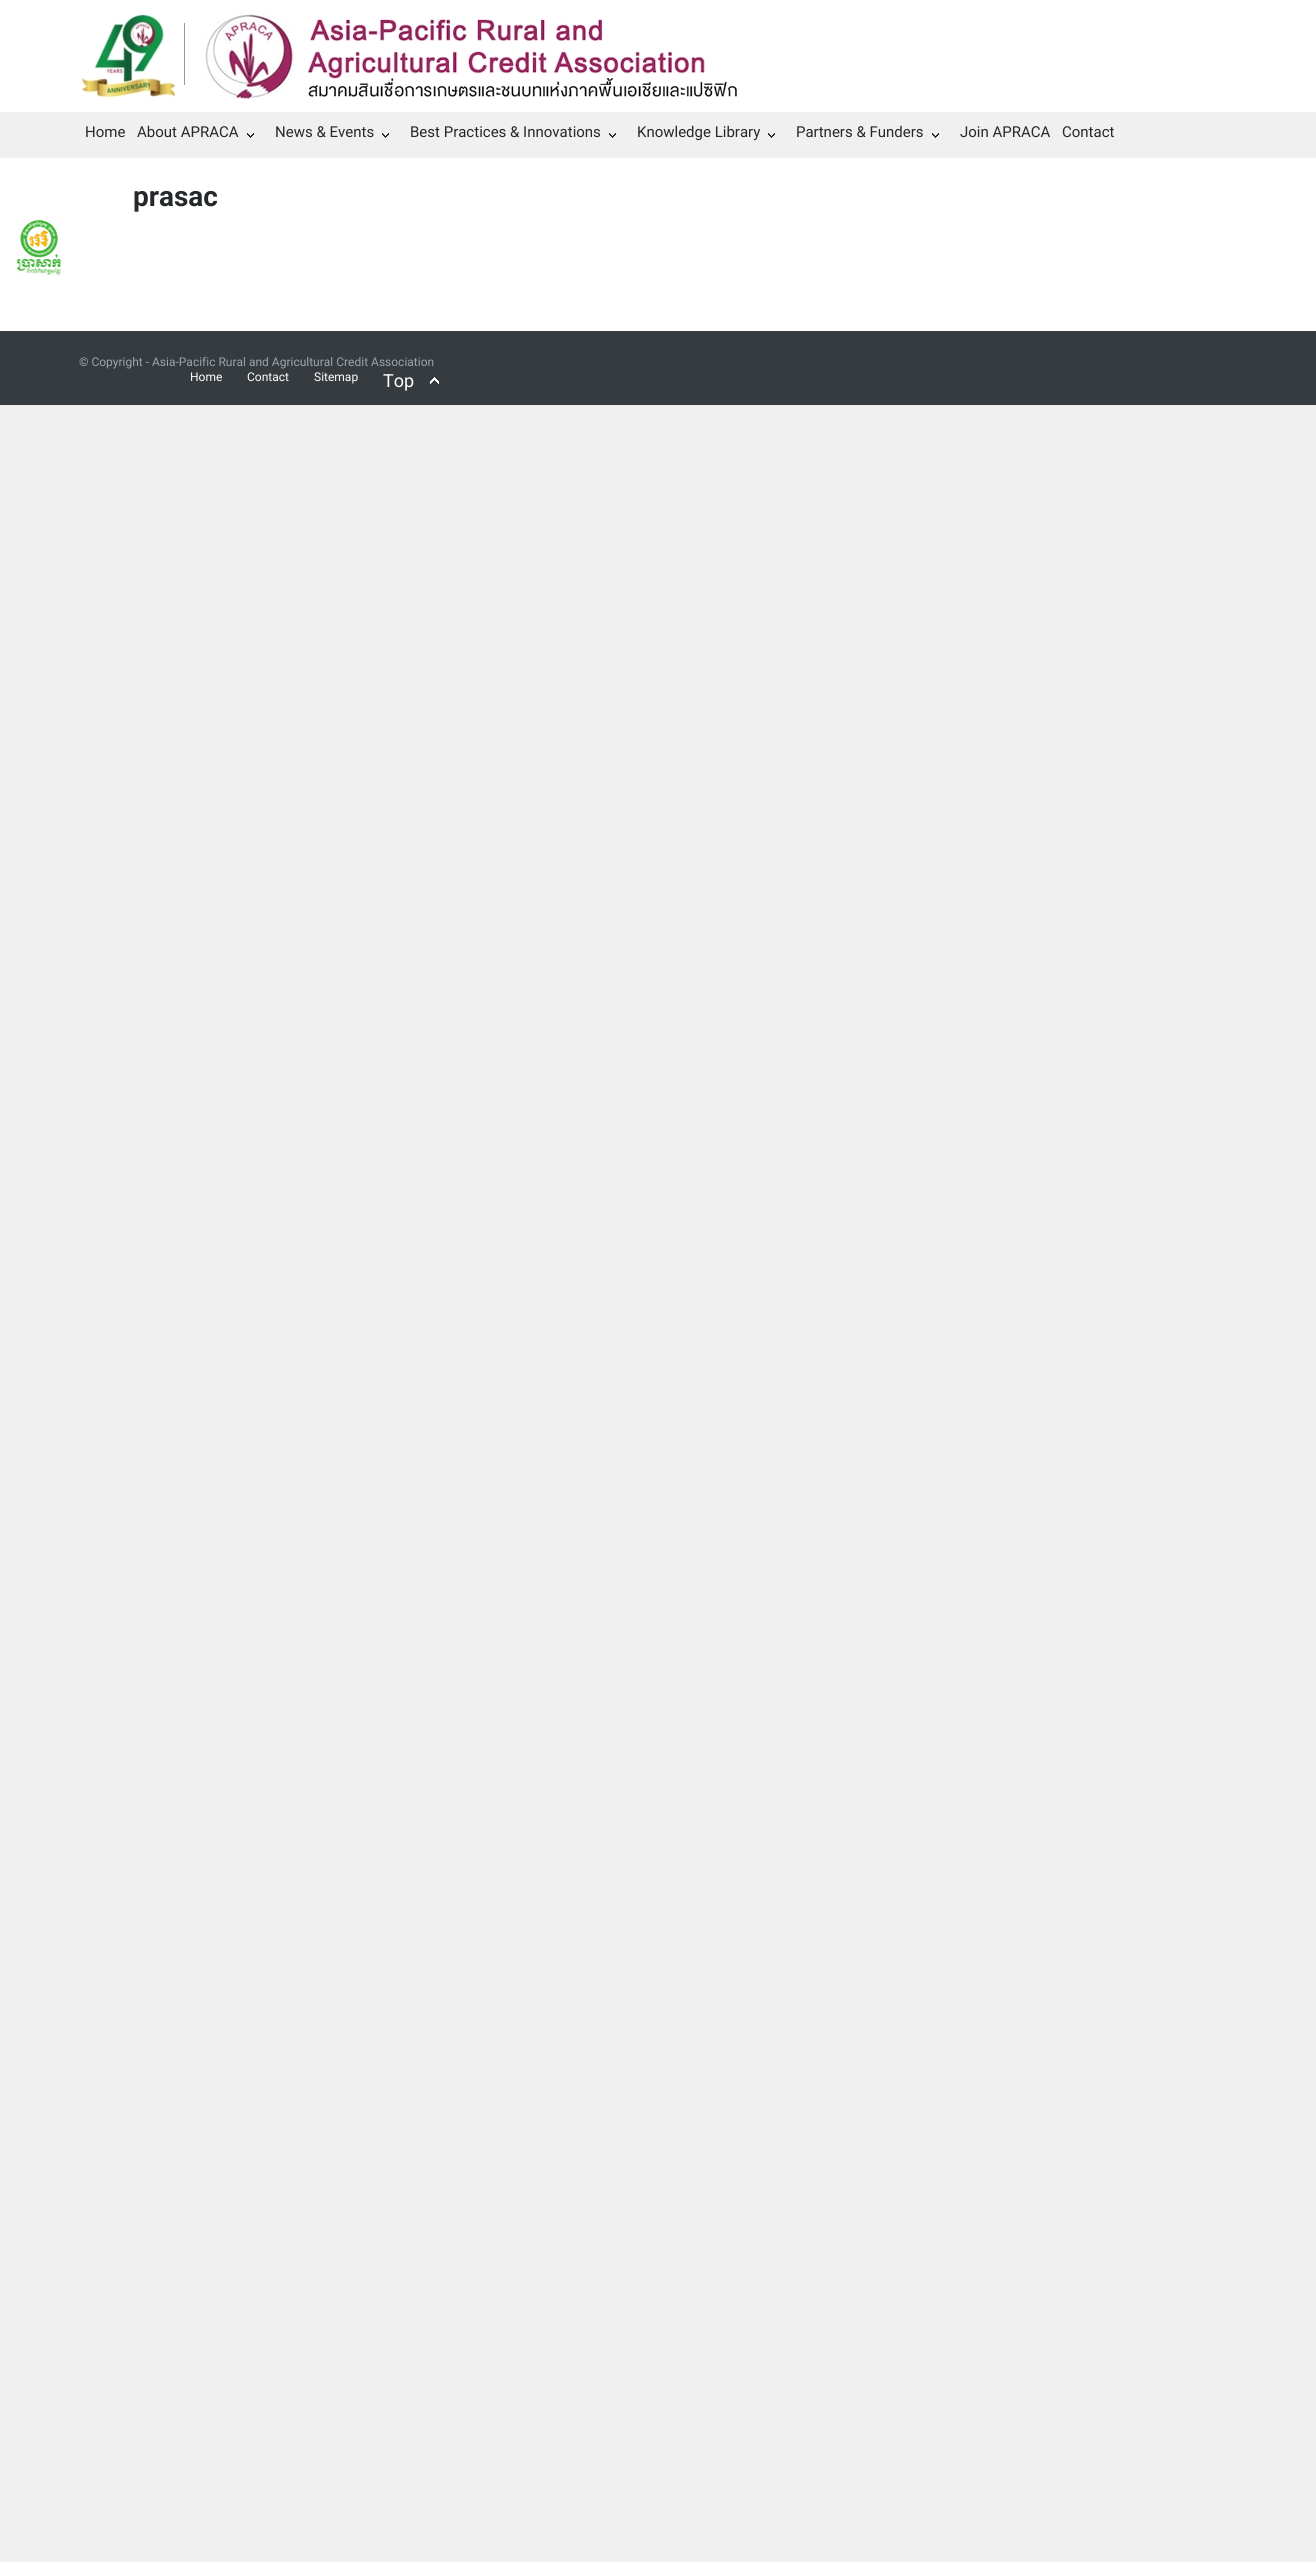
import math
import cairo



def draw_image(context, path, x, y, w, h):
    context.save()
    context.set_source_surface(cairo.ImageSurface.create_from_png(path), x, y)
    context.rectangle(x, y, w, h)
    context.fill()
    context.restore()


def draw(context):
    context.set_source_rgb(240 / 255, 240 / 255, 240 / 255)
    context.paint()
    context.set_source_rgb(1, 1, 1)
    context.rectangle(0, 0, 1316, 331)
    context.fill()
    draw_image(context, "images/1.png", 81, 13, 656, 86)
    context.set_source_rgb(240 / 255, 240 / 255, 240 / 255)
    context.rectangle(0, 112, 1316, 46)
    context.fill()
    draw_image(context, "images/2.png", 247, 133, 7, 5)
    draw_image(context, "images/2.png", 382, 133, 7, 5)
    draw_image(context, "images/2.png", 609, 133, 7, 5)
    draw_image(context, "images/2.png", 768, 133, 7, 5)
    draw_image(context, "images/2.png", 932, 133, 7, 5)
    draw_image(context, "images/3.png", 16, 220, 46, 56)
    context.set_source_rgb(54 / 255, 59 / 255, 64 / 255)
    context.rectangle(0, 331, 1316, 74)
    context.fill()
    draw_image(context, "images/4.png", 430, 377, 9, 7)
    context.select_font_face("Roboto")
    context.set_font_size(15)
    context.set_source_rgb(37 / 255, 40 / 255, 42 / 255)
    context.move_to(85, 137)
    context.show_text("Home")
    context.move_to(137, 137)
    context.show_text("About APRACA")
    context.move_to(275, 137)
    context.show_text("News & Events")
    context.move_to(410, 137)
    context.show_text("Best Practices & Innovations")
    context.move_to(637, 137)
    context.show_text("Knowledge Library")
    context.move_to(796, 137)
    context.show_text("Partners & Funders")
    context.move_to(960, 137)
    context.show_text("Join APRACA")
    context.move_to(1062, 137)
    context.show_text("Contact")
    context.select_font_face("Roboto", cairo.FontSlant.NORMAL, cairo.FontWeight.BOLD)
    context.set_font_size(28)
    context.move_to(133, 206)
    context.show_text("prasac")
    context.select_font_face("Roboto")
    context.set_font_size(12)
    context.set_source_rgb(157 / 255, 164 / 255, 171 / 255)
    context.move_to(79, 366)
    context.show_text("© Copyright - Asia-Pacific Rural and Agricultural Credit Association")
    context.set_source_rgb(1, 1, 1)
    context.move_to(190, 381)
    context.show_text("Home")
    context.move_to(247, 381)
    context.show_text("Contact")
    context.move_to(314, 381)
    context.show_text("Sitemap")
    context.set_font_size(18)
    context.move_to(383, 387)
    context.show_text("Top")


surface = cairo.ImageSurface(cairo.Format.RGB24, 1316, 2562)
context = cairo.Context(surface)
options = cairo.FontOptions()
options.set_hint_metrics(cairo.HintMetrics.OFF)
options.set_hint_style(cairo.HintStyle.NONE)
context.set_font_options(options)
context.set_miter_limit(4)
draw(context)
surface.write_to_png("out.png")
